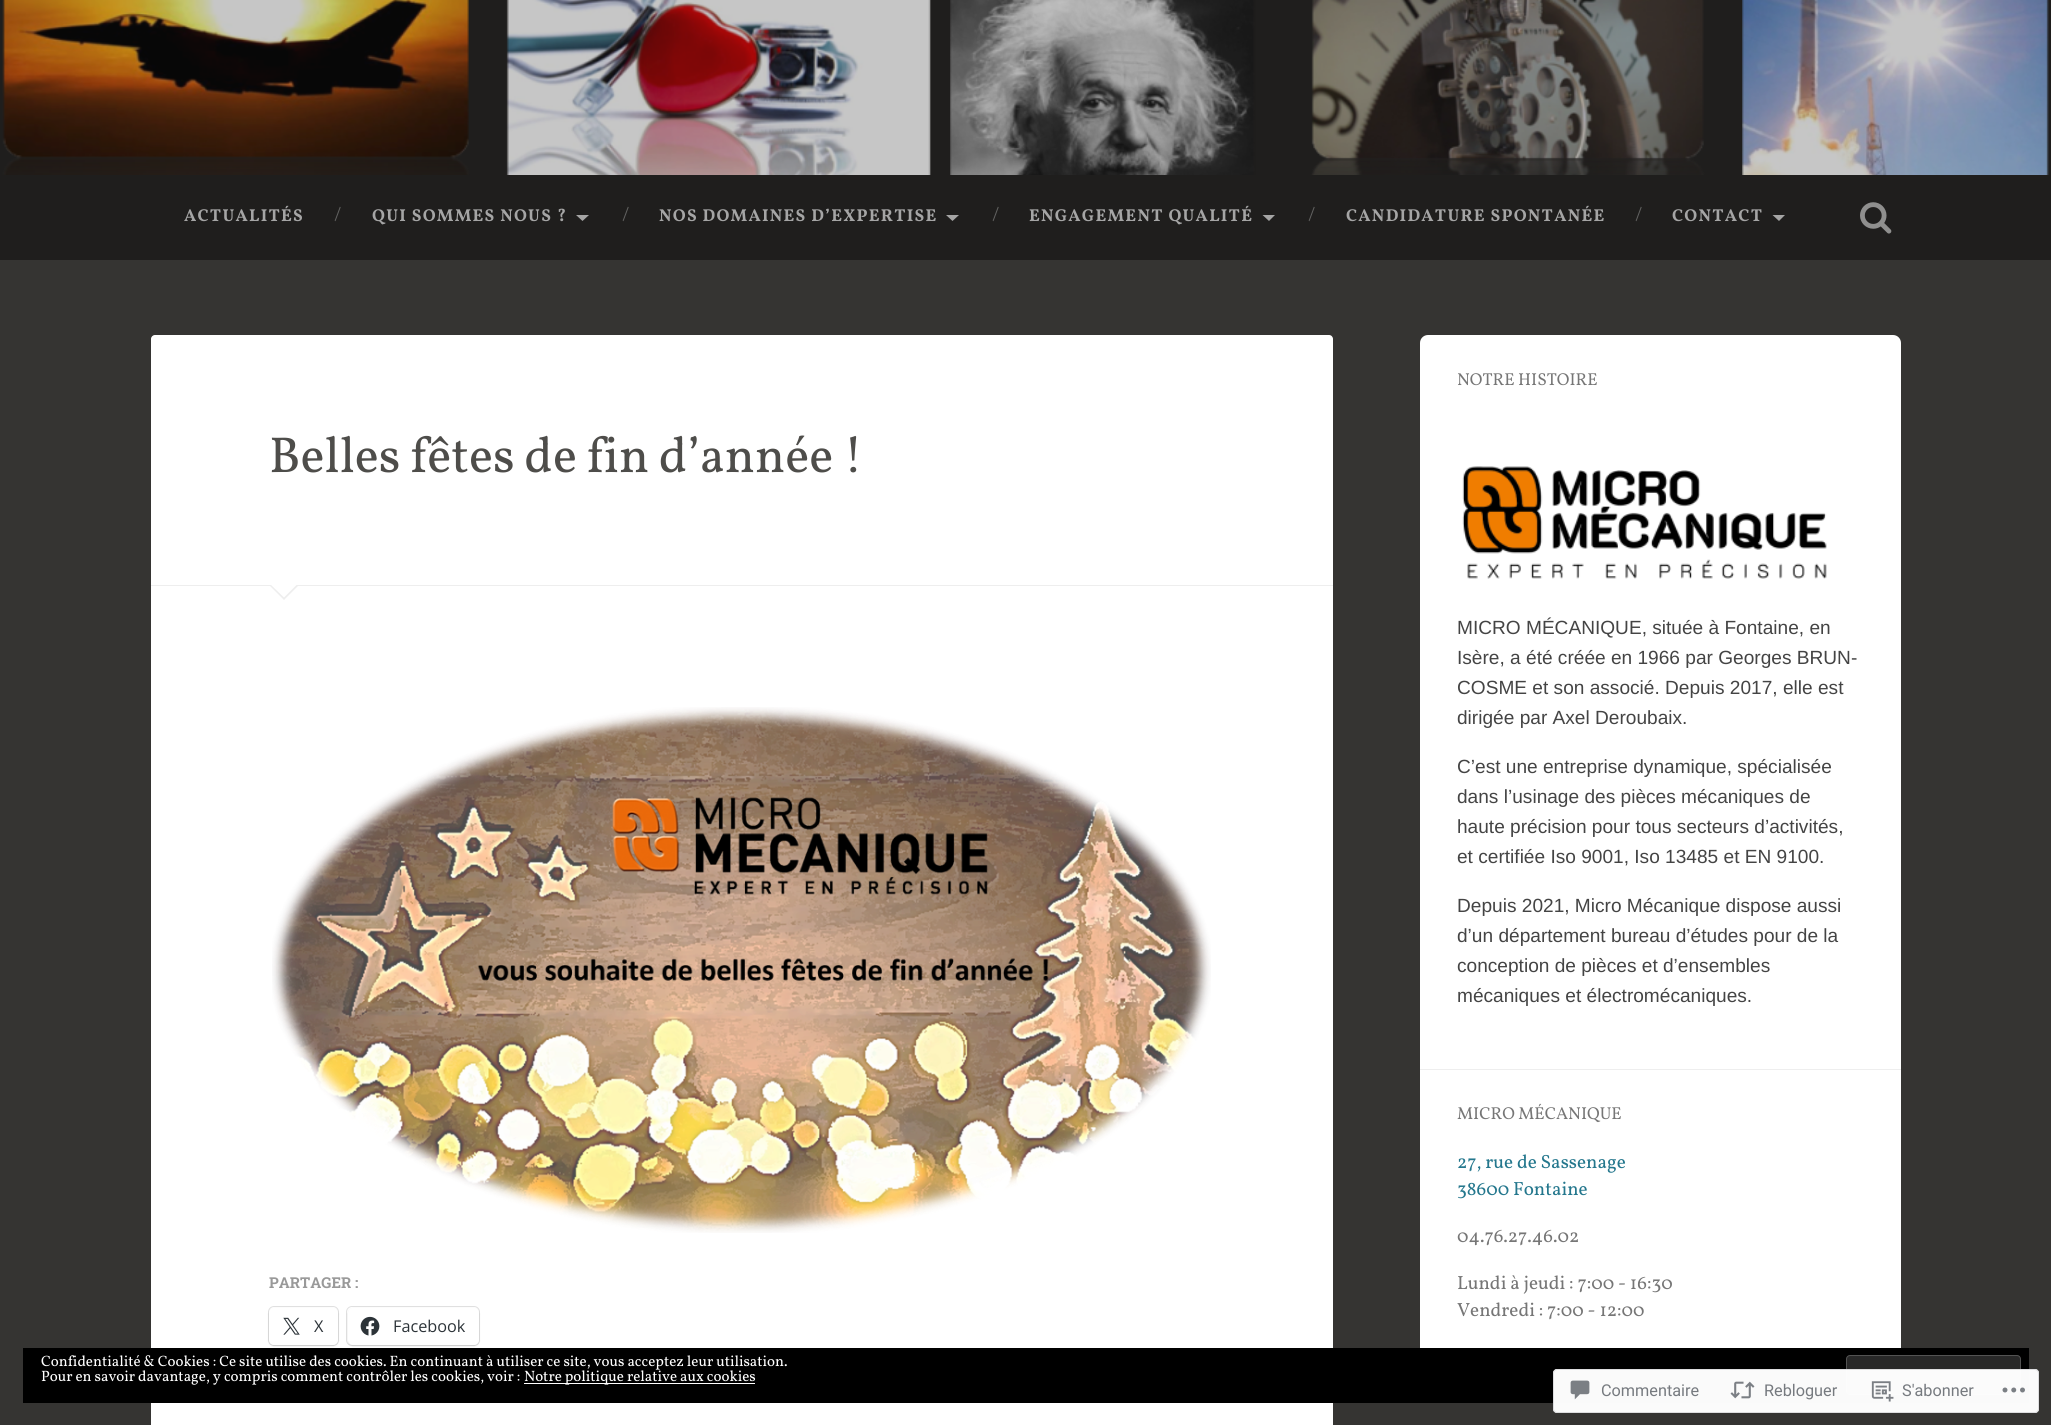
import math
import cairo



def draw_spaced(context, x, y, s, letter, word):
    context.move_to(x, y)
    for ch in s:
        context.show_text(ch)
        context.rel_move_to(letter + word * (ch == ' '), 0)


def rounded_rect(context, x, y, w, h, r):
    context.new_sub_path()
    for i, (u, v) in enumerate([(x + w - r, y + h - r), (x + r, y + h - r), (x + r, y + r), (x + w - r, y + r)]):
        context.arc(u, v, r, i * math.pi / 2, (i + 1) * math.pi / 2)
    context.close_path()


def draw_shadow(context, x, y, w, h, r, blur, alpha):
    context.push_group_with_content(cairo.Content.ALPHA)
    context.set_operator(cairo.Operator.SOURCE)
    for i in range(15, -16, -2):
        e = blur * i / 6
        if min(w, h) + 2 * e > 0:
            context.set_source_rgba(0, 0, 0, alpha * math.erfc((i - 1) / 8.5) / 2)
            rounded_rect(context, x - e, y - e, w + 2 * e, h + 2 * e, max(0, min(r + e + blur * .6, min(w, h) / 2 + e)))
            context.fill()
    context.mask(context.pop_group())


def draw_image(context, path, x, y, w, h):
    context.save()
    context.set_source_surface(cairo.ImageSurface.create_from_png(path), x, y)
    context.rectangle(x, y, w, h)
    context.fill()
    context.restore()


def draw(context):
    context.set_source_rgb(53 / 255, 52 / 255, 50 / 255)
    context.paint()
    context.set_source_rgb(31 / 255, 30 / 255, 29 / 255)
    context.rectangle(0, 0, 2051, 260)
    context.fill()
    draw_image(context, "images/1.png", 2, 0, 2047, 175)
    context.set_source_rgb(165 / 255, 165 / 255, 165 / 255)
    context.new_path()
    context.move_to(576, 215)
    context.line_to(589, 215)
    context.line_to(582.5, 221)
    context.close_path()
    context.fill()
    context.new_path()
    context.move_to(946, 215)
    context.line_to(959, 215)
    context.line_to(952.5, 221)
    context.close_path()
    context.fill()
    context.new_path()
    context.move_to(1262.5, 215)
    context.line_to(1275, 215)
    context.line_to(1269, 221)
    context.close_path()
    context.fill()
    context.new_path()
    context.move_to(1772.5, 215)
    context.line_to(1785, 215)
    context.line_to(1779, 221)
    context.close_path()
    context.fill()
    draw_image(context, "images/2.png", 1860, 202, 32, 32)
    context.set_source_rgb(1, 1, 1)
    rounded_rect(context, 151, 335, 1182, 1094, 4)
    context.fill()
    context.set_source_rgb(238 / 255, 238 / 255, 238 / 255)
    context.rectangle(151, 585, 1182, 1)
    context.fill()
    context.new_path()
    context.move_to(269, 585)
    context.line_to(299, 585)
    context.line_to(284, 600)
    context.close_path()
    context.fill()
    context.set_source_rgb(1, 1, 1)
    context.new_path()
    context.move_to(270, 584)
    context.line_to(297.5, 584)
    context.line_to(284, 597.5)
    context.close_path()
    context.fill()
    draw_image(context, "images/3.png", 272, 707, 939, 526)
    rounded_rect(context, 268.5, 1306.5, 70, 39, 5.5)
    context.set_source_rgb(224 / 255, 224 / 255, 224 / 255)
    context.set_line_width(1)
    context.stroke()
    context.set_source_rgb(0, 0, 0)
    draw_shadow(context, 269, 1309, 69, 37, 5, 1, 0.12)
    context.set_source_rgb(1, 1, 1)
    rounded_rect(context, 269, 1308, 69, 37, 5)
    context.fill()
    draw_image(context, "images/4.png", 283, 1317, 17, 18)
    rounded_rect(context, 346.5, 1306.5, 133, 39, 5.5)
    context.set_source_rgb(224 / 255, 224 / 255, 224 / 255)
    context.stroke()
    context.set_source_rgb(0, 0, 0)
    draw_shadow(context, 348, 1309, 131, 37, 5, 1, 0.12)
    context.set_source_rgb(1, 1, 1)
    rounded_rect(context, 348, 1308, 131, 37, 5)
    context.fill()
    draw_image(context, "images/5.png", 360, 1316, 20, 20)
    rounded_rect(context, 1420, 335, 481, 1028, 8)
    context.fill()
    draw_image(context, "images/6.png", 1462, 466, 365, 113)
    context.set_source_rgb(238 / 255, 238 / 255, 238 / 255)
    context.rectangle(1420, 1069, 481, 1)
    context.fill()
    context.set_source_rgb(0, 0, 0)
    context.rectangle(23, 1348, 2006, 55)
    context.fill()
    context.set_source_rgb(40 / 255, 40 / 255, 40 / 255)
    rounded_rect(context, 1846.5, 1355.5, 174, 39, 3.5)
    context.fill_preserve()
    context.set_source_rgb(83 / 255, 83 / 255, 83 / 255)
    context.stroke()
    context.set_source_rgb(1, 1, 1)
    context.rectangle(524, 1383, 231, 1)
    context.fill()
    context.set_source_rgba(1, 1, 1, 0.98)
    rounded_rect(context, 1553, 1369, 486, 44, 4)
    context.fill()
    rounded_rect(context, 1553.5, 1369.5, 485, 43, 3.5)
    context.set_source_rgba(220 / 255, 220 / 255, 222 / 255, 0.98)
    context.stroke()
    draw_image(context, "images/7.png", 1570, 1380, 20, 20)
    draw_image(context, "images/8.png", 1730, 1381, 25, 18)
    draw_image(context, "images/9.png", 1871, 1381, 23, 21)
    draw_image(context, "images/10.png", 2002, 1387, 23, 6)
    context.select_font_face("Vollkorn", cairo.FontSlant.NORMAL, cairo.FontWeight.BOLD)
    context.set_font_size(17.25)
    context.set_source_rgb(165 / 255, 165 / 255, 165 / 255)
    draw_spaced(context, 184, 221, "ACTUALITÉS", 1.25, 0)
    context.select_font_face("Vollkorn")
    context.set_font_size(20)
    context.set_source_rgb(98 / 255, 98 / 255, 97 / 255)
    context.move_to(334, 221)
    context.show_text("/")
    context.select_font_face("Vollkorn", cairo.FontSlant.NORMAL, cairo.FontWeight.BOLD)
    context.set_font_size(17.25)
    context.set_source_rgb(165 / 255, 165 / 255, 165 / 255)
    draw_spaced(context, 372, 221, "QUI SOMMES NOUS ?", 1.25, 0)
    context.select_font_face("Vollkorn")
    context.set_font_size(20)
    context.set_source_rgb(98 / 255, 98 / 255, 97 / 255)
    context.move_to(622, 221)
    context.show_text("/")
    context.select_font_face("Vollkorn", cairo.FontSlant.NORMAL, cairo.FontWeight.BOLD)
    context.set_font_size(17.25)
    context.set_source_rgb(165 / 255, 165 / 255, 165 / 255)
    draw_spaced(context, 659, 221, "NOS DOMAINES D’EXPERTISE", 1.25, 0)
    context.select_font_face("Vollkorn")
    context.set_font_size(20)
    context.set_source_rgb(98 / 255, 98 / 255, 97 / 255)
    context.move_to(992, 221)
    context.show_text("/")
    context.select_font_face("Vollkorn", cairo.FontSlant.NORMAL, cairo.FontWeight.BOLD)
    context.set_font_size(17.25)
    context.set_source_rgb(165 / 255, 165 / 255, 165 / 255)
    draw_spaced(context, 1029, 221, "ENGAGEMENT QUALITÉ", 1.25, 0)
    context.select_font_face("Vollkorn")
    context.set_font_size(20)
    context.set_source_rgb(98 / 255, 98 / 255, 97 / 255)
    context.move_to(1308, 221)
    context.show_text("/")
    context.select_font_face("Vollkorn", cairo.FontSlant.NORMAL, cairo.FontWeight.BOLD)
    context.set_font_size(17.25)
    context.set_source_rgb(165 / 255, 165 / 255, 165 / 255)
    draw_spaced(context, 1346, 221, "CANDIDATURE SPONTANÉE", 1.25, 0)
    context.select_font_face("Vollkorn")
    context.set_font_size(20)
    context.set_source_rgb(98 / 255, 98 / 255, 97 / 255)
    context.move_to(1635, 221)
    context.show_text("/")
    context.select_font_face("Vollkorn", cairo.FontSlant.NORMAL, cairo.FontWeight.BOLD)
    context.set_font_size(17.25)
    context.set_source_rgb(165 / 255, 165 / 255, 165 / 255)
    draw_spaced(context, 1672, 221, "CONTACT", 1.25, 0)
    context.select_font_face("Vollkorn")
    context.set_font_size(50.6)
    context.set_source_rgb(78 / 255, 77 / 255, 74 / 255)
    draw_spaced(context, 269, 472, "Belles fêtes de fin d’année !", 0, -0.5)
    context.select_font_face("Roboto Slab", cairo.FontSlant.NORMAL, cairo.FontWeight.BOLD)
    context.set_font_size(15)
    context.set_source_rgb(153 / 255, 153 / 255, 153 / 255)
    context.move_to(269, 1288)
    context.show_text("PARTAGER :")
    context.select_font_face("Open Sans")
    context.set_font_size(16.25)
    context.set_source_rgb(44 / 255, 51 / 255, 56 / 255)
    context.move_to(314, 1332)
    context.show_text("X")
    context.move_to(393, 1332)
    context.show_text("Facebook")
    context.select_font_face("Vollkorn")
    context.set_font_size(17.25)
    context.set_source_rgb(118 / 255, 118 / 255, 118 / 255)
    context.move_to(1457, 385)
    context.show_text("NOTRE HISTOIRE")
    context.select_font_face("Liberation Sans")
    context.set_font_size(19.1)
    context.set_source_rgb(68 / 255, 68 / 255, 68 / 255)
    context.move_to(1457, 634)
    context.show_text("MICRO MÉCANIQUE, située à Fontaine, en")
    context.move_to(1457, 664)
    context.show_text("Isère, a été créée en 1966 par Georges BRUN-")
    context.move_to(1457, 694)
    context.show_text("COSME et son associé. Depuis 2017, elle est")
    context.move_to(1457, 724)
    context.show_text("dirigée par Axel Deroubaix.")
    context.move_to(1457, 773)
    context.show_text("C’est une entreprise dynamique, spécialisée")
    context.move_to(1457, 803)
    context.show_text("dans l’usinage des pièces mécaniques de")
    context.move_to(1457, 833)
    context.show_text("haute précision pour tous secteurs d’activités,")
    context.move_to(1457, 863)
    context.show_text("et certifiée Iso 9001, Iso 13485 et EN 9100.")
    context.move_to(1457, 912)
    context.show_text("Depuis 2021, Micro Mécanique dispose aussi")
    context.move_to(1457, 942)
    context.show_text("d’un département bureau d’études pour de la")
    context.move_to(1457, 972)
    context.show_text("conception de pièces et d’ensembles")
    context.move_to(1457, 1002)
    context.show_text("mécaniques et électromécaniques.")
    context.select_font_face("Vollkorn")
    context.set_font_size(17.25)
    context.set_source_rgb(118 / 255, 118 / 255, 118 / 255)
    context.move_to(1457, 1119)
    context.show_text("MICRO MÉCANIQUE")
    context.set_font_size(19.1)
    context.set_source_rgb(36 / 255, 119 / 255, 141 / 255)
    context.move_to(1457, 1168)
    context.show_text("27, rue de Sassenage")
    context.move_to(1457, 1195)
    context.show_text("38600 Fontaine")
    context.set_source_rgb(118 / 255, 118 / 255, 118 / 255)
    context.move_to(1457, 1242)
    context.show_text("04.76.27.46.02")
    context.move_to(1457, 1289)
    context.show_text("Lundi à jeudi : 7:00 - 16:30")
    context.move_to(1457, 1316)
    context.show_text("Vendredi : 7:00 - 12:00")
    context.set_font_size(15)
    context.set_source_rgb(1, 1, 1)
    context.move_to(41, 1366)
    context.show_text("Confidentialité & Cookies : Ce site utilise des cookies. En continuant à utiliser ce site, vous acceptez leur utilisation.")
    context.move_to(41, 1381)
    context.show_text("Pour en savoir davantage, y compris comment contrôler les cookies, voir :")
    context.move_to(524, 1381)
    context.show_text("Notre politique relative aux cookies")
    context.select_font_face("Roboto")
    context.set_font_size(16.25)
    context.set_source_rgb(118 / 255, 122 / 255, 127 / 255)
    context.move_to(1601, 1396)
    context.show_text("Commentaire")
    context.move_to(1764, 1396)
    context.show_text("Rebloguer")
    context.move_to(1902, 1396)
    context.show_text("S'abonner")


surface = cairo.ImageSurface(cairo.Format.RGB24, 2051, 1425)
context = cairo.Context(surface)
options = cairo.FontOptions()
options.set_hint_metrics(cairo.HintMetrics.OFF)
options.set_hint_style(cairo.HintStyle.NONE)
context.set_font_options(options)
context.set_miter_limit(4)
draw(context)
surface.write_to_png("out.png")
